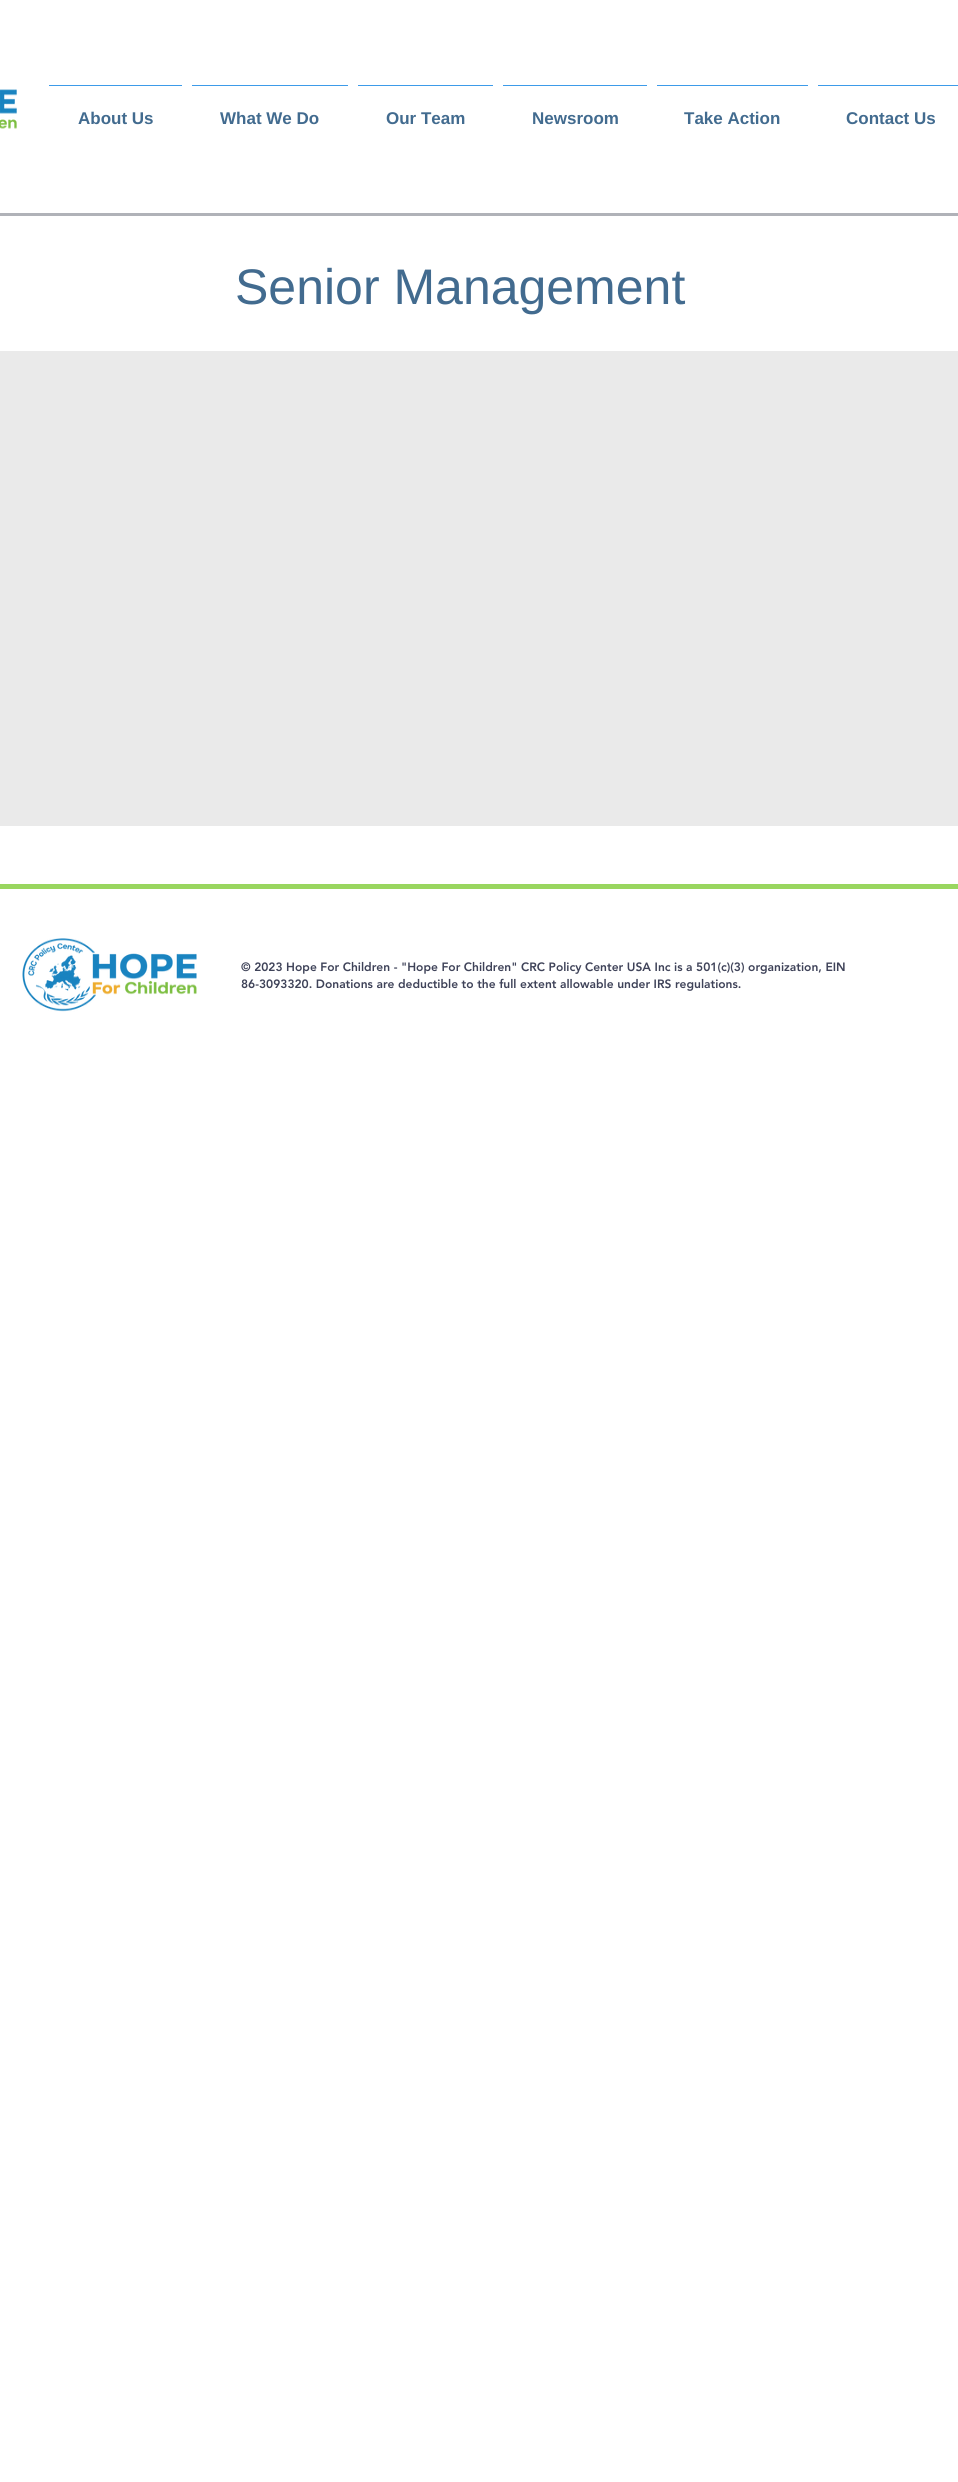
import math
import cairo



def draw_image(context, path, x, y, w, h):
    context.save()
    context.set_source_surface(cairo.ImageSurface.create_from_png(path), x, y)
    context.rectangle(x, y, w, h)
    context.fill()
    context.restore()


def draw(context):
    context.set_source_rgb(1, 1, 1)
    context.paint()
    draw_image(context, "images/1.png", 0, 89, 17, 40)
    context.set_source_rgb(61 / 255, 155 / 255, 233 / 255)
    context.rectangle(49, 85, 133, 1)
    context.fill()
    context.rectangle(192, 85, 156, 1)
    context.fill()
    context.rectangle(358, 85, 135, 1)
    context.fill()
    context.rectangle(503, 85, 144, 1)
    context.fill()
    context.rectangle(657, 85, 151, 1)
    context.fill()
    context.rectangle(818, 85, 140, 1)
    context.fill()
    context.set_source_rgb(176 / 255, 178 / 255, 184 / 255)
    context.rectangle(0, 213, 958, 3)
    context.fill()
    context.set_source_rgb(234 / 255, 234 / 255, 234 / 255)
    context.rectangle(0, 351, 958, 475)
    context.fill()
    context.set_source_rgb(153 / 255, 214 / 255, 95 / 255)
    context.rectangle(0, 884, 958, 5)
    context.fill()
    draw_image(context, "images/2.png", 22, 938, 175, 74)
    context.select_font_face("Liberation Sans", cairo.FontSlant.NORMAL, cairo.FontWeight.BOLD)
    context.set_font_size(17)
    context.set_source_rgb(66 / 255, 107 / 255, 143 / 255)
    context.move_to(78, 124)
    context.show_text("About Us")
    context.move_to(220, 124)
    context.show_text("What We Do")
    context.move_to(386, 124)
    context.show_text("Our Team")
    context.move_to(532, 124)
    context.show_text("Newsroom")
    context.move_to(684, 124)
    context.show_text("Take Action")
    context.move_to(846, 124)
    context.show_text("Contact Us")
    context.select_font_face("Liberation Sans")
    context.set_font_size(50)
    context.move_to(235, 304)
    context.show_text("Senior Management")
    context.select_font_face("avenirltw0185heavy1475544 Black")
    context.set_font_size(12)
    context.set_source_rgb(63 / 255, 67 / 255, 89 / 255)
    context.move_to(241, 971)
    context.show_text("© 2023 Hope For Children - \"Hope For Children\" CRC Policy Center USA Inc is a 501(c)(3) organization, EIN")
    context.move_to(241, 988)
    context.show_text("86-3093320. Donations are deductible to the full extent allowable under IRS regulations.")


surface = cairo.ImageSurface(cairo.Format.RGB24, 958, 2482)
context = cairo.Context(surface)
options = cairo.FontOptions()
options.set_hint_metrics(cairo.HintMetrics.OFF)
options.set_hint_style(cairo.HintStyle.NONE)
context.set_font_options(options)
context.set_miter_limit(4)
draw(context)
surface.write_to_png("out.png")
